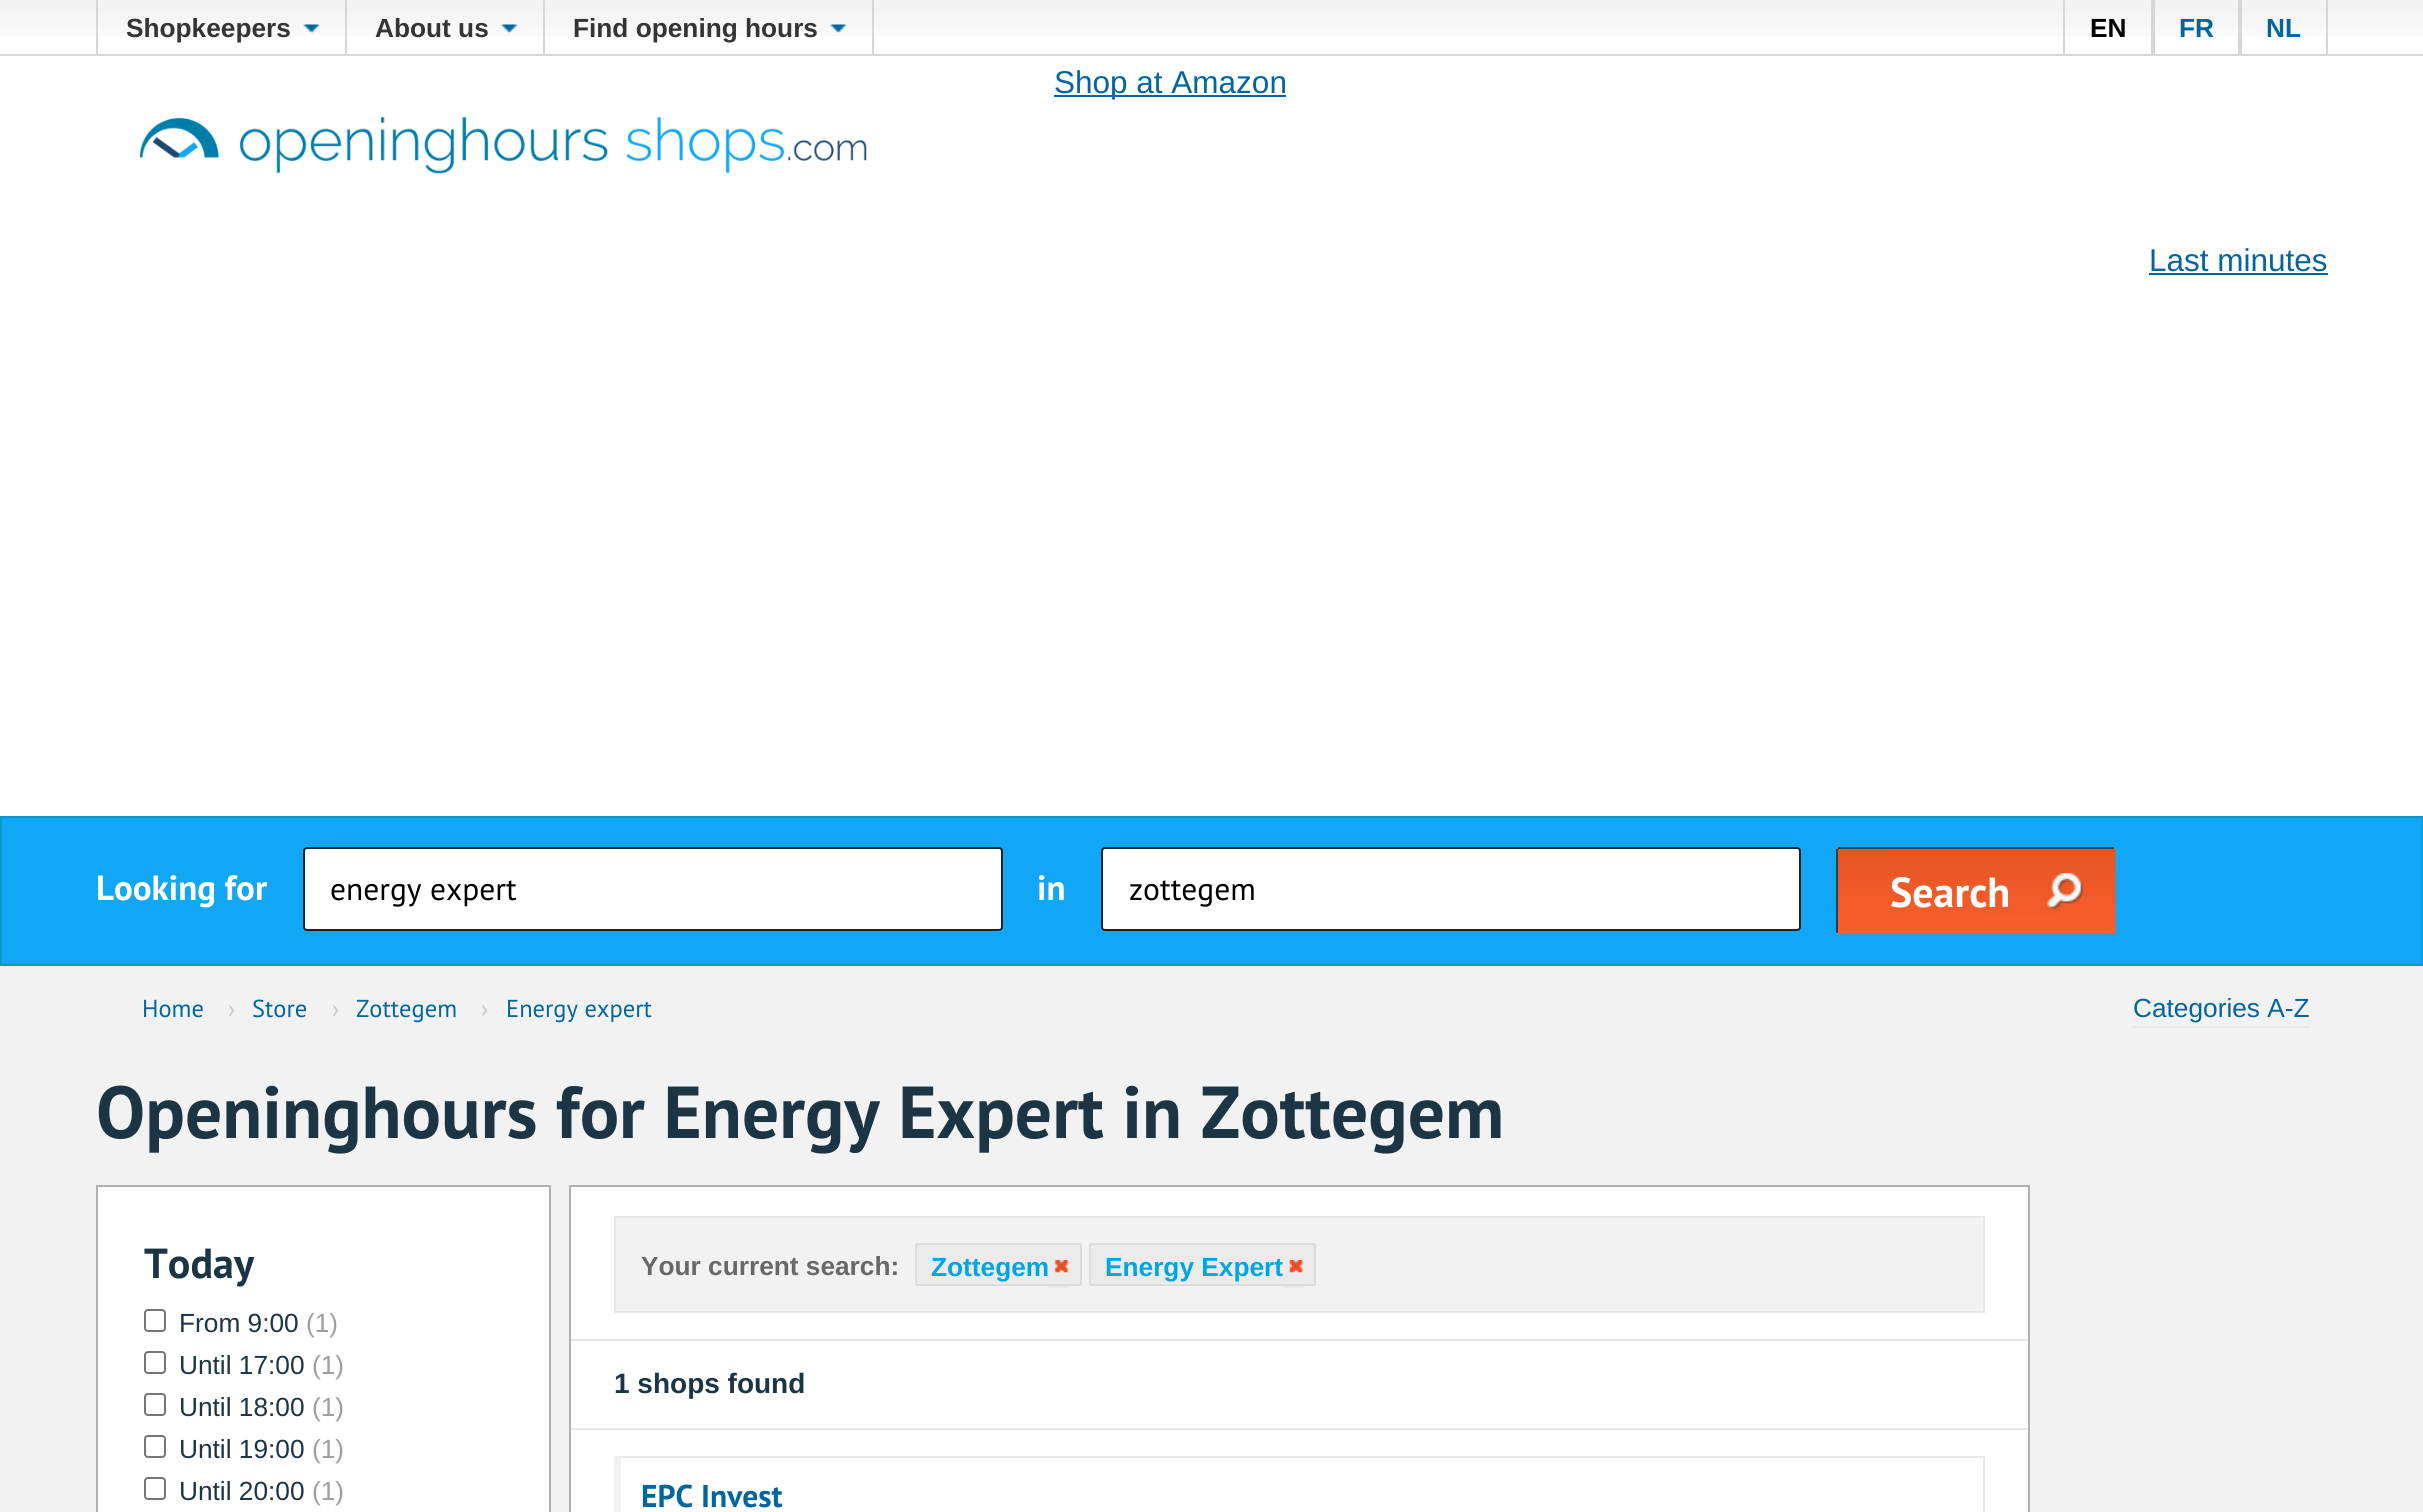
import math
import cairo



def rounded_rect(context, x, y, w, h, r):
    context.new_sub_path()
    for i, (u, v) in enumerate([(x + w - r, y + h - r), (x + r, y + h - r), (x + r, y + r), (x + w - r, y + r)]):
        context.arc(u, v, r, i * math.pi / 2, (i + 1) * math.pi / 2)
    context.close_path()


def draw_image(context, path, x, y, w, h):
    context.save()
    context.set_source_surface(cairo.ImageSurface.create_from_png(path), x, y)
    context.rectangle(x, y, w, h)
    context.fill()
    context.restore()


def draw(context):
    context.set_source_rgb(1, 1, 1)
    context.paint()
    draw_image(context, "images/1.png", 0, 0, 2423, 36)
    context.set_source_rgb(215 / 255, 215 / 255, 215 / 255)
    context.rectangle(0, 54, 2423, 2)
    context.fill()
    context.set_source_rgb(214 / 255, 214 / 255, 214 / 255)
    context.rectangle(345, 0, 2, 54)
    context.fill()
    context.rectangle(96, 0, 2, 54)
    context.fill()
    draw_image(context, "images/2.png", 302, 24, 19, 10)
    context.rectangle(543, 0, 2, 54)
    context.fill()
    draw_image(context, "images/3.png", 500, 24, 18, 10)
    context.rectangle(872, 0, 2, 54)
    context.fill()
    draw_image(context, "images/4.png", 829, 24, 18, 10)
    context.rectangle(2151, 0, 4, 54)
    context.fill()
    context.rectangle(2063, 0, 2, 54)
    context.fill()
    context.rectangle(2238, 0, 4, 54)
    context.fill()
    context.rectangle(2326, 0, 2, 54)
    context.fill()
    draw_image(context, "images/5.png", 140, 117, 727, 57)
    context.set_source_rgb(2 / 255, 101 / 255, 156 / 255)
    context.rectangle(1054, 95, 232, 2)
    context.fill()
    context.rectangle(2149, 273, 179, 2)
    context.fill()
    context.set_source_rgb(18 / 255, 167 / 255, 244 / 255)
    context.rectangle(1, 817, 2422, 148)
    context.fill_preserve()
    context.set_source_rgb(8 / 255, 152 / 255, 202 / 255)
    context.stroke()
    context.set_source_rgb(1, 1, 1)
    rounded_rect(context, 304, 848, 698, 82, 3)
    context.fill_preserve()
    context.set_source_rgb(15 / 255, 36 / 255, 48 / 255)
    context.stroke()
    context.set_source_rgb(1, 1, 1)
    rounded_rect(context, 1102, 848, 698, 82, 3)
    context.fill_preserve()
    context.set_source_rgb(15 / 255, 36 / 255, 48 / 255)
    context.stroke()
    draw_image(context, "images/6.png", 1835, 847, 281, 88)
    context.set_source_rgb(8 / 255, 73 / 255, 96 / 255)
    context.rectangle(1838, 847, 276, 2)
    context.fill()
    context.rectangle(1836, 849, 2, 84)
    context.fill()
    context.set_source_rgb(242 / 255, 242 / 255, 242 / 255)
    context.rectangle(0, 966, 2423, 546)
    context.fill()
    context.set_source_rgb(234 / 255, 234 / 255, 234 / 255)
    context.rectangle(2133, 1026, 177, 2)
    context.fill()
    context.set_source_rgb(1, 1, 1)
    context.rectangle(97, 1186, 453, 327)
    context.fill_preserve()
    context.set_source_rgb(176 / 255, 176 / 255, 176 / 255)
    context.stroke()
    rounded_rect(context, 145, 1310, 20, 21, 3)
    context.set_source_rgb(118 / 255, 118 / 255, 118 / 255)
    context.stroke()
    rounded_rect(context, 145, 1352, 20, 21, 3)
    context.stroke()
    rounded_rect(context, 145, 1394, 20, 21, 3)
    context.stroke()
    rounded_rect(context, 145, 1436, 20, 21, 3)
    context.stroke()
    rounded_rect(context, 145, 1478, 20, 21, 3)
    context.stroke()
    context.set_source_rgb(1, 1, 1)
    context.rectangle(570, 1186, 1459, 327)
    context.fill_preserve()
    context.set_source_rgb(176 / 255, 176 / 255, 176 / 255)
    context.stroke()
    context.set_source_rgb(231 / 255, 231 / 255, 231 / 255)
    context.rectangle(571, 1339, 1457, 2)
    context.fill()
    context.set_source_rgb(242 / 255, 242 / 255, 242 / 255)
    context.rectangle(615, 1217, 1369, 95)
    context.fill_preserve()
    context.set_source_rgb(232 / 255, 232 / 255, 232 / 255)
    context.stroke()
    context.set_source_rgb(235 / 255, 235 / 255, 235 / 255)
    rounded_rect(context, 916, 1244, 165, 41, 1)
    context.fill_preserve()
    context.set_source_rgb(220 / 255, 220 / 255, 220 / 255)
    context.stroke()
    draw_image(context, "images/7.png", 1055, 1260, 15, 13)
    context.set_source_rgb(234 / 255, 234 / 255, 234 / 255)
    context.rectangle(1048, 1286, 21, 2)
    context.fill()
    context.set_source_rgb(235 / 255, 235 / 255, 235 / 255)
    rounded_rect(context, 1090, 1244, 225, 41, 1)
    context.fill_preserve()
    context.set_source_rgb(220 / 255, 220 / 255, 220 / 255)
    context.stroke()
    draw_image(context, "images/8.png", 1289, 1260, 15, 13)
    context.set_source_rgb(234 / 255, 234 / 255, 234 / 255)
    context.rectangle(1283, 1286, 21, 2)
    context.fill()
    context.set_source_rgb(231 / 255, 231 / 255, 231 / 255)
    context.rectangle(571, 1428, 1457, 2)
    context.fill()
    context.set_source_rgb(233 / 255, 233 / 255, 233 / 255)
    context.new_path()
    context.move_to(614, 1456)
    context.line_to(1984, 1456)
    context.line_to(1983, 1458)
    context.line_to(621, 1458)
    context.close_path()
    context.fill()
    context.rectangle(1983, 1456, 2, 56)
    context.fill()
    context.set_source_rgb(242 / 255, 242 / 255, 242 / 255)
    context.new_path()
    context.move_to(614, 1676)
    context.line_to(614, 1456)
    context.line_to(621, 1458)
    context.line_to(621, 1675)
    context.close_path()
    context.fill()
    context.select_font_face("Liberation Sans", cairo.FontSlant.NORMAL, cairo.FontWeight.BOLD)
    context.set_font_size(26.25)
    context.set_source_rgb(52 / 255, 52 / 255, 52 / 255)
    context.move_to(126, 37)
    context.show_text("Shopkeepers")
    context.move_to(375, 37)
    context.show_text("About us")
    context.move_to(573, 37)
    context.show_text("Find opening hours")
    context.set_source_rgb(0, 0, 0)
    context.move_to(2090, 37)
    context.show_text("EN")
    context.set_source_rgb(2 / 255, 101 / 255, 156 / 255)
    context.move_to(2179, 37)
    context.show_text("FR")
    context.move_to(2266, 37)
    context.show_text("NL")
    context.select_font_face("Liberation Sans")
    context.set_font_size(31.5)
    context.move_to(1054, 93)
    context.show_text("Shop at Amazon")
    context.move_to(2149, 271)
    context.show_text("Last minutes")
    context.select_font_face("PT Sans", cairo.FontSlant.NORMAL, cairo.FontWeight.BOLD)
    context.set_font_size(35)
    context.set_source_rgb(1, 1, 1)
    context.move_to(96, 900)
    context.show_text("Looking for")
    context.select_font_face("PT Sans")
    context.set_font_size(31.5)
    context.set_source_rgb(0, 0, 0)
    context.move_to(330, 900)
    context.show_text("energy expert")
    context.select_font_face("PT Sans", cairo.FontSlant.NORMAL, cairo.FontWeight.BOLD)
    context.set_font_size(35)
    context.set_source_rgb(1, 1, 1)
    context.move_to(1037, 900)
    context.show_text("in")
    context.select_font_face("PT Sans")
    context.set_font_size(31.5)
    context.set_source_rgb(0, 0, 0)
    context.move_to(1129, 900)
    context.show_text("zottegem")
    context.select_font_face("PT Sans", cairo.FontSlant.NORMAL, cairo.FontWeight.BOLD)
    context.set_font_size(42)
    context.set_source_rgb(1, 1, 1)
    context.move_to(1890, 907)
    context.show_text("Search")
    context.select_font_face("PT Sans")
    context.set_font_size(24.5)
    context.set_source_rgb(2 / 255, 101 / 255, 156 / 255)
    context.move_to(142, 1017)
    context.show_text("Home")
    context.set_source_rgb(200 / 255, 200 / 255, 200 / 255)
    context.move_to(228, 1017)
    context.show_text("›")
    context.set_source_rgb(2 / 255, 101 / 255, 156 / 255)
    context.move_to(252, 1017)
    context.show_text("Store")
    context.set_source_rgb(200 / 255, 200 / 255, 200 / 255)
    context.move_to(332, 1017)
    context.show_text("›")
    context.set_source_rgb(2 / 255, 101 / 255, 156 / 255)
    context.move_to(356, 1017)
    context.show_text("Zottegem")
    context.set_source_rgb(200 / 255, 200 / 255, 200 / 255)
    context.move_to(481, 1017)
    context.show_text("›")
    context.set_source_rgb(2 / 255, 101 / 255, 156 / 255)
    context.move_to(506, 1017)
    context.show_text("Energy expert")
    context.select_font_face("Liberation Sans")
    context.set_font_size(26.25)
    context.move_to(2133, 1017)
    context.show_text("Categories A-Z")
    context.select_font_face("PT Sans", cairo.FontSlant.NORMAL, cairo.FontWeight.BOLD)
    context.set_font_size(73.5)
    context.set_source_rgb(27 / 255, 53 / 255, 68 / 255)
    context.move_to(96, 1138)
    context.show_text("Openinghours for Energy Expert in Zottegem")
    context.set_font_size(42)
    context.move_to(144, 1278)
    context.show_text("Today")
    context.select_font_face("Liberation Sans")
    context.set_font_size(26.25)
    context.move_to(179, 1332)
    context.show_text("From 9:00")
    context.set_source_rgb(159 / 255, 159 / 255, 159 / 255)
    context.move_to(306, 1332)
    context.show_text("(1)")
    context.set_source_rgb(27 / 255, 53 / 255, 68 / 255)
    context.move_to(179, 1374)
    context.show_text("Until 17:00")
    context.set_source_rgb(159 / 255, 159 / 255, 159 / 255)
    context.move_to(312, 1374)
    context.show_text("(1)")
    context.set_source_rgb(27 / 255, 53 / 255, 68 / 255)
    context.move_to(179, 1416)
    context.show_text("Until 18:00")
    context.set_source_rgb(159 / 255, 159 / 255, 159 / 255)
    context.move_to(312, 1416)
    context.show_text("(1)")
    context.set_source_rgb(27 / 255, 53 / 255, 68 / 255)
    context.move_to(179, 1458)
    context.show_text("Until 19:00")
    context.set_source_rgb(159 / 255, 159 / 255, 159 / 255)
    context.move_to(312, 1458)
    context.show_text("(1)")
    context.set_source_rgb(27 / 255, 53 / 255, 68 / 255)
    context.move_to(179, 1500)
    context.show_text("Until 20:00")
    context.set_source_rgb(159 / 255, 159 / 255, 159 / 255)
    context.move_to(312, 1500)
    context.show_text("(1)")
    context.select_font_face("Liberation Sans", cairo.FontSlant.NORMAL, cairo.FontWeight.BOLD)
    context.set_source_rgb(104 / 255, 104 / 255, 104 / 255)
    context.move_to(641, 1275)
    context.show_text("Your current search:")
    context.set_source_rgb(0, 165 / 255, 227 / 255)
    context.move_to(931, 1276)
    context.show_text("Zottegem")
    context.move_to(1105, 1276)
    context.show_text("Energy Expert")
    context.set_font_size(28)
    context.set_source_rgb(27 / 255, 53 / 255, 68 / 255)
    context.move_to(614, 1393)
    context.show_text("1 shops found")
    context.select_font_face("PT Sans", cairo.FontSlant.NORMAL, cairo.FontWeight.BOLD)
    context.set_font_size(31.5)
    context.set_source_rgb(2 / 255, 101 / 255, 156 / 255)
    context.move_to(641, 1507)
    context.show_text("EPC Invest")


surface = cairo.ImageSurface(cairo.Format.RGB24, 2423, 1512)
context = cairo.Context(surface)
options = cairo.FontOptions()
options.set_hint_metrics(cairo.HintMetrics.OFF)
options.set_hint_style(cairo.HintStyle.NONE)
context.set_font_options(options)
context.set_miter_limit(4)
draw(context)
surface.write_to_png("out.png")
